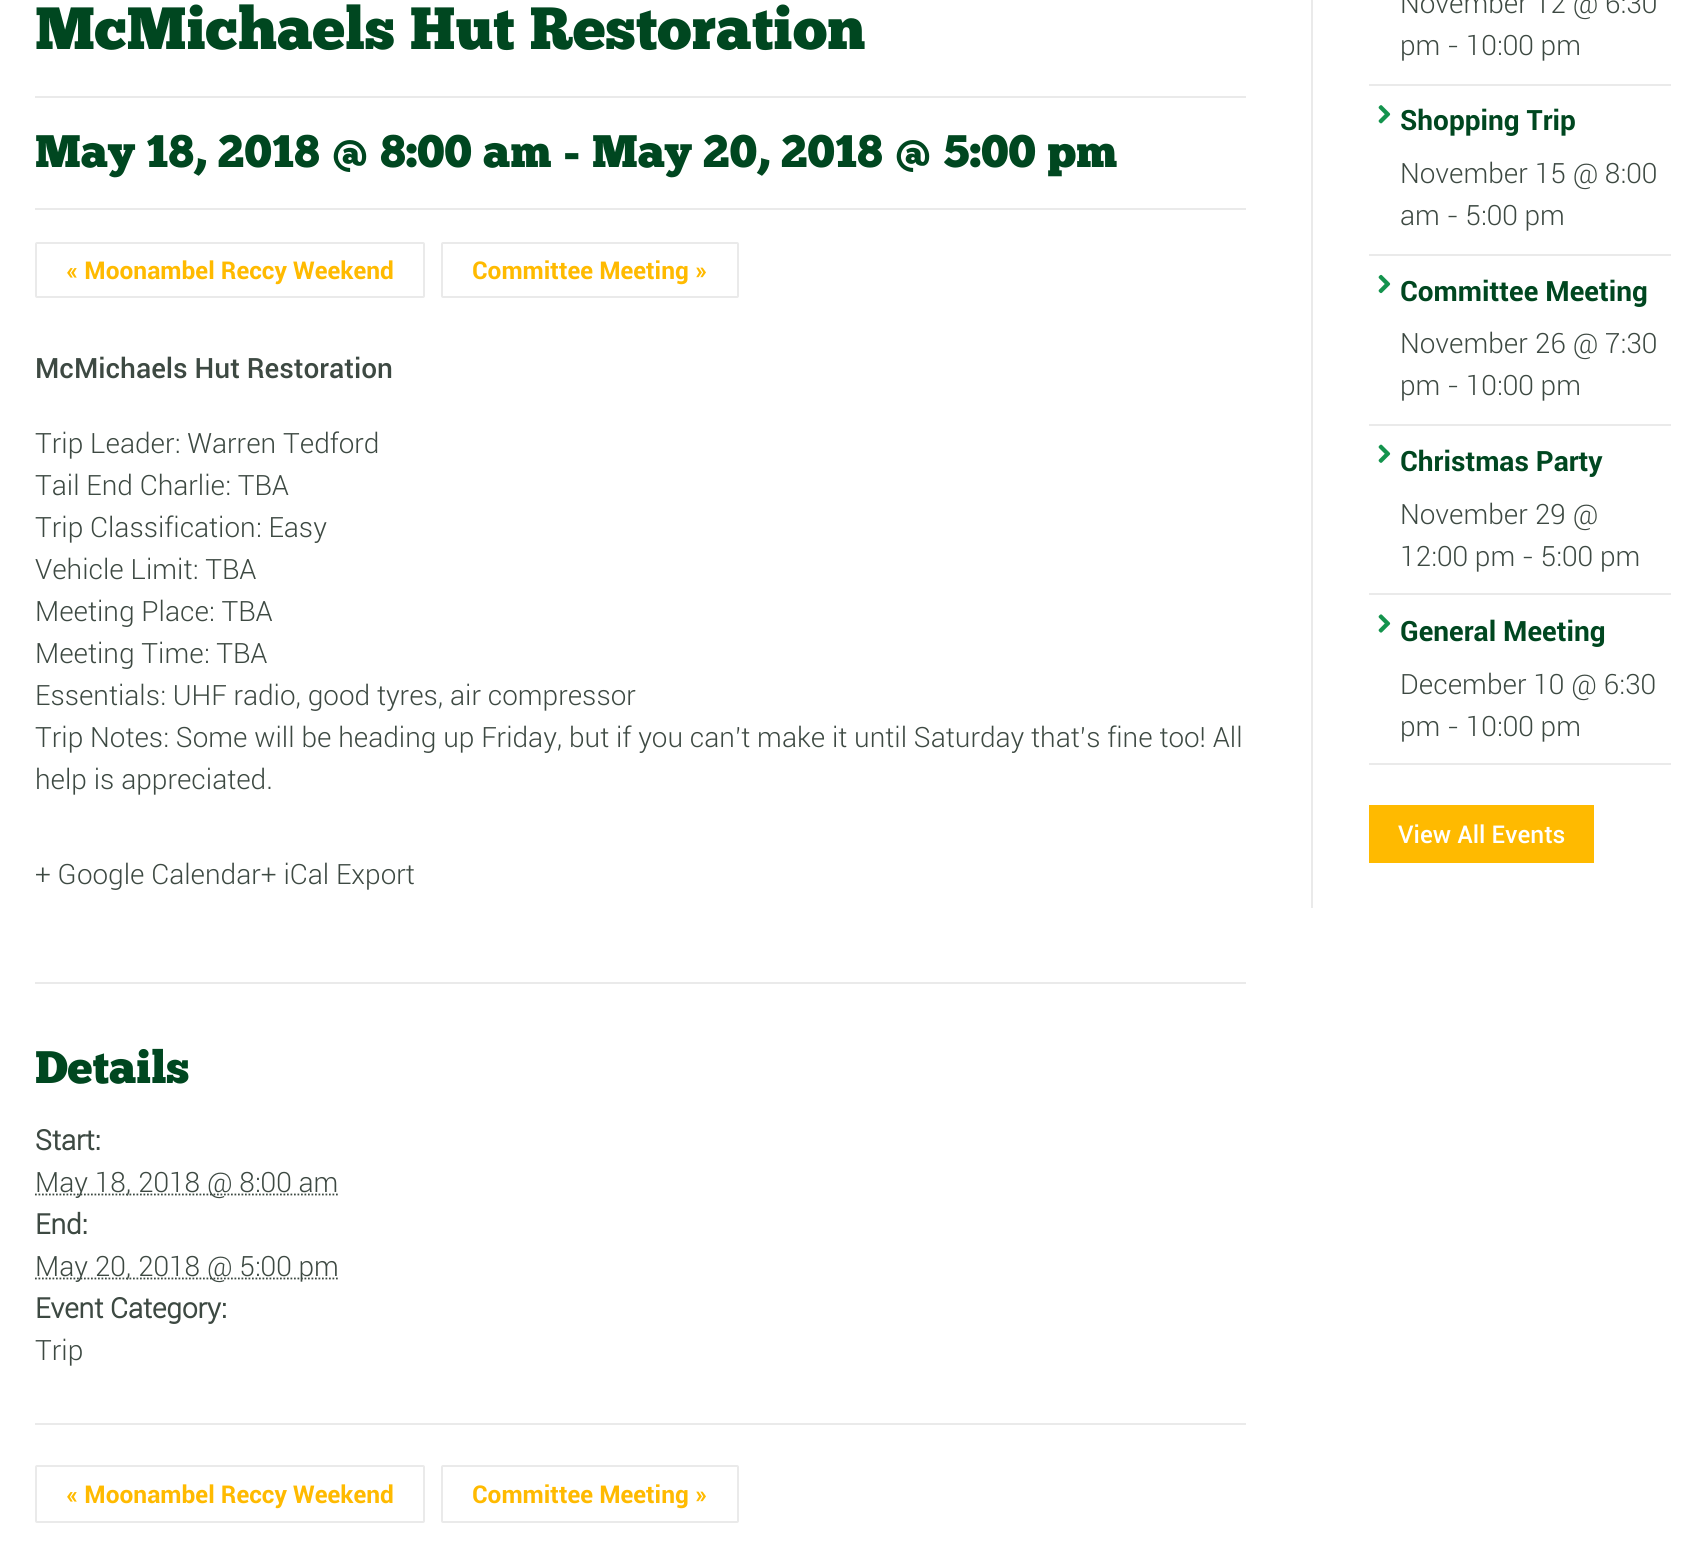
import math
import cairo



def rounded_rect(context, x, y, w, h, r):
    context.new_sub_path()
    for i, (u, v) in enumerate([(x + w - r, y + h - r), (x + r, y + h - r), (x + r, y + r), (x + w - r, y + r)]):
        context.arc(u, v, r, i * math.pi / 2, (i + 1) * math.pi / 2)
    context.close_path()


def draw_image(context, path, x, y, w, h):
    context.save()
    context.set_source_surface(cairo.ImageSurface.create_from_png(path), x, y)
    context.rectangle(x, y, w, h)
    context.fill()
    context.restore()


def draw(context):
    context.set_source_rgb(1, 1, 1)
    context.paint()
    context.set_source_rgb(234 / 255, 234 / 255, 234 / 255)
    context.rectangle(35, 96, 1211, 2)
    context.fill()
    context.rectangle(35, 208, 1211, 2)
    context.fill()
    rounded_rect(context, 36, 243, 388, 54, 1)
    context.stroke()
    rounded_rect(context, 442, 243, 296, 54, 1)
    context.stroke()
    context.rectangle(35, 982, 1211, 2)
    context.fill()
    context.new_path()
    context.move_to(35, 1194.5)
    context.line_to(338.5, 1194.5)
    context.set_source_rgb(61 / 255, 73 / 255, 66 / 255)
    context.set_line_width(1.8)
    context.set_dash([1.75, 1.75])
    context.stroke()
    context.new_path()
    context.move_to(35, 1278.5)
    context.line_to(339, 1278.5)
    context.stroke()
    context.set_source_rgb(234 / 255, 234 / 255, 234 / 255)
    context.rectangle(35, 1423, 1211, 2)
    context.fill()
    rounded_rect(context, 36, 1466, 388, 56, 1)
    context.set_line_width(2)
    context.set_dash([])
    context.stroke()
    rounded_rect(context, 442, 1466, 296, 56, 1)
    context.stroke()
    context.rectangle(1311, 0, 2, 908)
    context.fill()
    context.rectangle(1369, 84, 302, 2)
    context.fill()
    context.rectangle(1369, 254, 302, 2)
    context.fill()
    draw_image(context, "images/1.png", 1378, 105, 13, 19)
    context.rectangle(1369, 424, 302, 2)
    context.fill()
    draw_image(context, "images/2.png", 1378, 274, 13, 20)
    context.rectangle(1369, 593, 302, 2)
    context.fill()
    draw_image(context, "images/3.png", 1378, 444, 13, 19)
    context.rectangle(1369, 763, 302, 2)
    context.fill()
    draw_image(context, "images/4.png", 1378, 614, 13, 19)
    context.set_source_rgb(1, 186 / 255, 0)
    context.rectangle(1369, 805, 225, 58)
    context.fill()
    context.select_font_face("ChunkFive")
    context.set_font_size(59.5)
    context.set_source_rgb(0, 71 / 255, 32 / 255)
    context.move_to(35, 49)
    context.show_text("McMichaels Hut Restoration")
    context.set_font_size(45.5)
    context.move_to(35, 167)
    context.show_text("May 18, 2018 @ 8:00 am - May 20, 2018 @ 5:00 pm")
    context.select_font_face("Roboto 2", cairo.FontSlant.NORMAL, cairo.FontWeight.BOLD)
    context.set_font_size(24.5)
    context.set_source_rgb(1, 186 / 255, 0)
    context.move_to(66, 279)
    context.show_text("« Moonambel Reccy Weekend")
    context.move_to(472, 279)
    context.show_text("Committee Meeting »")
    context.select_font_face("Roboto Medium")
    context.set_font_size(28)
    context.set_source_rgb(61 / 255, 73 / 255, 66 / 255)
    context.move_to(35, 378)
    context.show_text("McMichaels Hut Restoration")
    context.select_font_face("Roboto Light")
    context.move_to(35, 453)
    context.show_text("Trip Leader: Warren Tedford")
    context.move_to(35, 495)
    context.show_text("Tail End Charlie: TBA")
    context.move_to(35, 537)
    context.show_text("Trip Classification: Easy")
    context.move_to(35, 579)
    context.show_text("Vehicle Limit: TBA")
    context.move_to(35, 621)
    context.show_text("Meeting Place: TBA")
    context.move_to(35, 663)
    context.show_text("Meeting Time: TBA")
    context.move_to(35, 705)
    context.show_text("Essentials: UHF radio, good tyres, air compressor")
    context.move_to(35, 747)
    context.show_text("Trip Notes: Some will be heading up Friday, but if you can’t make it until Saturday that’s fine too! All")
    context.move_to(35, 789)
    context.show_text("help is appreciated.")
    context.move_to(35, 884)
    context.show_text("+ Google Calendar+ iCal Export")
    context.select_font_face("ChunkFive")
    context.set_font_size(45.5)
    context.set_source_rgb(0, 71 / 255, 32 / 255)
    context.move_to(35, 1083)
    context.show_text("Details")
    context.select_font_face("Roboto", cairo.FontSlant.NORMAL, cairo.FontWeight.BOLD)
    context.set_font_size(28)
    context.set_source_rgb(61 / 255, 73 / 255, 66 / 255)
    context.move_to(35, 1150)
    context.show_text("Start:")
    context.select_font_face("Roboto Light")
    context.move_to(35, 1192)
    context.show_text("May 18, 2018 @ 8:00 am")
    context.select_font_face("Roboto", cairo.FontSlant.NORMAL, cairo.FontWeight.BOLD)
    context.move_to(35, 1234)
    context.show_text("End:")
    context.select_font_face("Roboto Light")
    context.move_to(35, 1276)
    context.show_text("May 20, 2018 @ 5:00 pm")
    context.select_font_face("Roboto", cairo.FontSlant.NORMAL, cairo.FontWeight.BOLD)
    context.move_to(35, 1318)
    context.show_text("Event Category:")
    context.select_font_face("Roboto Light")
    context.move_to(35, 1360)
    context.show_text("Trip")
    context.select_font_face("Roboto 2", cairo.FontSlant.NORMAL, cairo.FontWeight.BOLD)
    context.set_font_size(24.5)
    context.set_source_rgb(1, 186 / 255, 0)
    context.move_to(66, 1503)
    context.show_text("« Moonambel Reccy Weekend")
    context.move_to(472, 1503)
    context.show_text("Committee Meeting »")
    context.select_font_face("Roboto Light")
    context.set_font_size(28)
    context.set_source_rgb(61 / 255, 73 / 255, 66 / 255)
    context.move_to(1400, 13)
    context.show_text("November 12 @ 6:30")
    context.move_to(1400, 55)
    context.show_text("pm - 10:00 pm")
    context.select_font_face("Roboto 2", cairo.FontSlant.NORMAL, cairo.FontWeight.BOLD)
    context.set_source_rgb(0, 71 / 255, 32 / 255)
    context.move_to(1400, 130)
    context.show_text("Shopping Trip")
    context.select_font_face("Roboto Light")
    context.set_source_rgb(61 / 255, 73 / 255, 66 / 255)
    context.move_to(1400, 183)
    context.show_text("November 15 @ 8:00")
    context.move_to(1400, 225)
    context.show_text("am - 5:00 pm")
    context.select_font_face("Roboto 2", cairo.FontSlant.NORMAL, cairo.FontWeight.BOLD)
    context.set_source_rgb(0, 71 / 255, 32 / 255)
    context.move_to(1400, 301)
    context.show_text("Committee Meeting")
    context.select_font_face("Roboto Light")
    context.set_source_rgb(61 / 255, 73 / 255, 66 / 255)
    context.move_to(1400, 353)
    context.show_text("November 26 @ 7:30")
    context.move_to(1400, 395)
    context.show_text("pm - 10:00 pm")
    context.select_font_face("Roboto 2", cairo.FontSlant.NORMAL, cairo.FontWeight.BOLD)
    context.set_source_rgb(0, 71 / 255, 32 / 255)
    context.move_to(1400, 471)
    context.show_text("Christmas Party")
    context.select_font_face("Roboto Light")
    context.set_source_rgb(61 / 255, 73 / 255, 66 / 255)
    context.move_to(1400, 524)
    context.show_text("November 29 @")
    context.move_to(1400, 566)
    context.show_text("12:00 pm - 5:00 pm")
    context.select_font_face("Roboto 2", cairo.FontSlant.NORMAL, cairo.FontWeight.BOLD)
    context.set_source_rgb(0, 71 / 255, 32 / 255)
    context.move_to(1400, 641)
    context.show_text("General Meeting")
    context.select_font_face("Roboto Light")
    context.set_source_rgb(61 / 255, 73 / 255, 66 / 255)
    context.move_to(1400, 694)
    context.show_text("December 10 @ 6:30")
    context.move_to(1400, 736)
    context.show_text("pm - 10:00 pm")
    context.select_font_face("Roboto Medium")
    context.set_font_size(24.5)
    context.set_source_rgb(1, 1, 1)
    context.move_to(1398, 843)
    context.show_text("View All Events")


surface = cairo.ImageSurface(cairo.Format.RGB24, 1706, 1555)
context = cairo.Context(surface)
options = cairo.FontOptions()
options.set_hint_metrics(cairo.HintMetrics.OFF)
options.set_hint_style(cairo.HintStyle.NONE)
context.set_font_options(options)
context.set_miter_limit(4)
draw(context)
surface.write_to_png("out.png")
